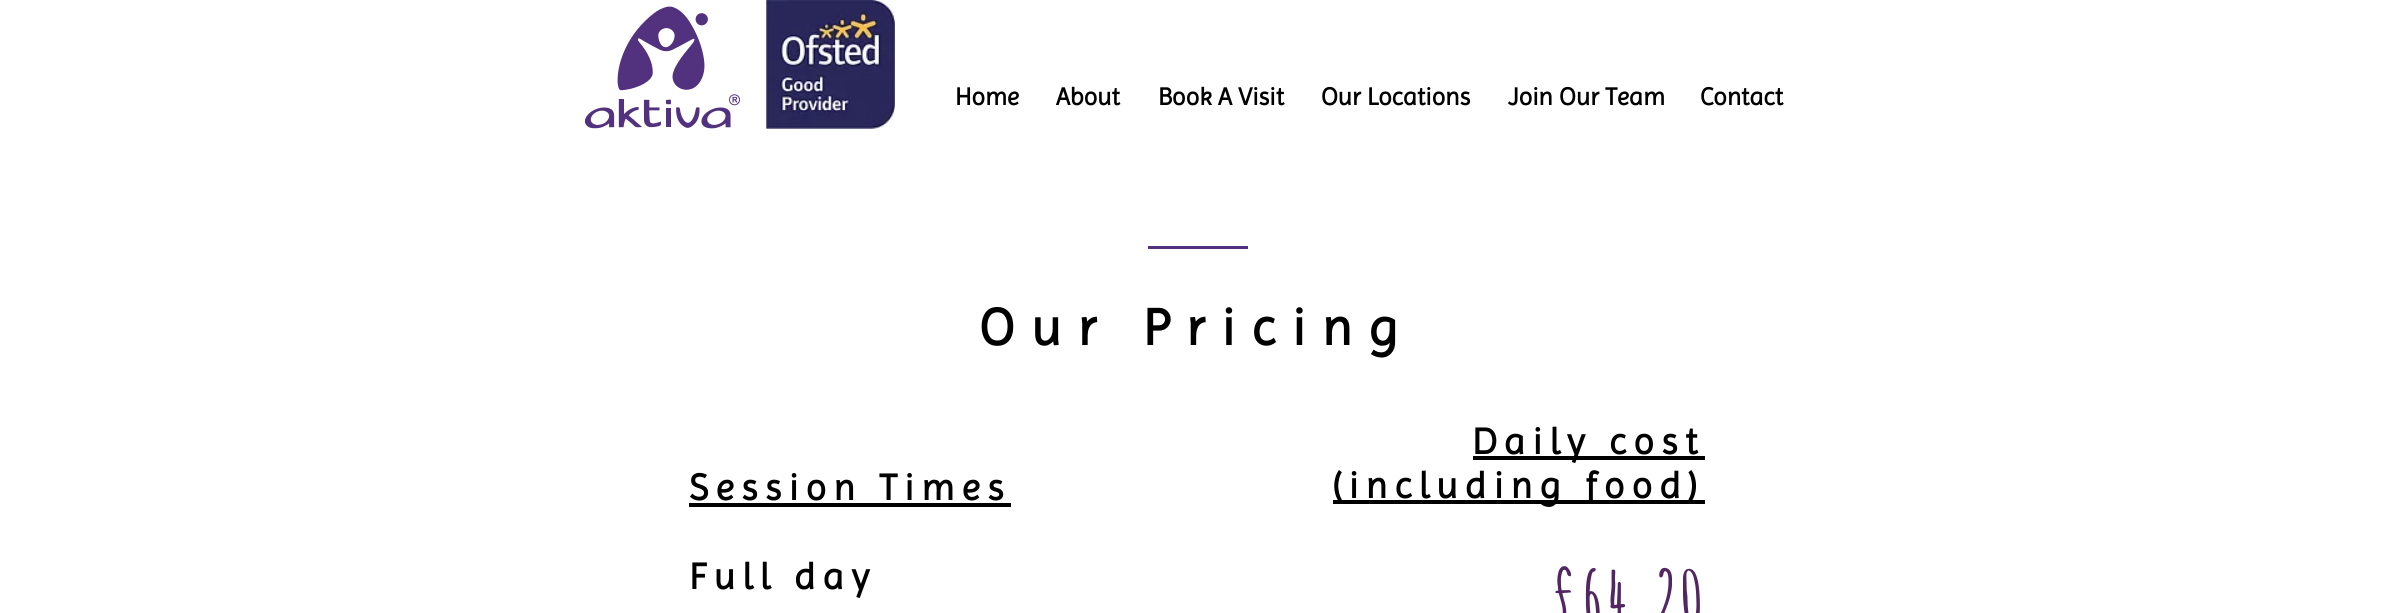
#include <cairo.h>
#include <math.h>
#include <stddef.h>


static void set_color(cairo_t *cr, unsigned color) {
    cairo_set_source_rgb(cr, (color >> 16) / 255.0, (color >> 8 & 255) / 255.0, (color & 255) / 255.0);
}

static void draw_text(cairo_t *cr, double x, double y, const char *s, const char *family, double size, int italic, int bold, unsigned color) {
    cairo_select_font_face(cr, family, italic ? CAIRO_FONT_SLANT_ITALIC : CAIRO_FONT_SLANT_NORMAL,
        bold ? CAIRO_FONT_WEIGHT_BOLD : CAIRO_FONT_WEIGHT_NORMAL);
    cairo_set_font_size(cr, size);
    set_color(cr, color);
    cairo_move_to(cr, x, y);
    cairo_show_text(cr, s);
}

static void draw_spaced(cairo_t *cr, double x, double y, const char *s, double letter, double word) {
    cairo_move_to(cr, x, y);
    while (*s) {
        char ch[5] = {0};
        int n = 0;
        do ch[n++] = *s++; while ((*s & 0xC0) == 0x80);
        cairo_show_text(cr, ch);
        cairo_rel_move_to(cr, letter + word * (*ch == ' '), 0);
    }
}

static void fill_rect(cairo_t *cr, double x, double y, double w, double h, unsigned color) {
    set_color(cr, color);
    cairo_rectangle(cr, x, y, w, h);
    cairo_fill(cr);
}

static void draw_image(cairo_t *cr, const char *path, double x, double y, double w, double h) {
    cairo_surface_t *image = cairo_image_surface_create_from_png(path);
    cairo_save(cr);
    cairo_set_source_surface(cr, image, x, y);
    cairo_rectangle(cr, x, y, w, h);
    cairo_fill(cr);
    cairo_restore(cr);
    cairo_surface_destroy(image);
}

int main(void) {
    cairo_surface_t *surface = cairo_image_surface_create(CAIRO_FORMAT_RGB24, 2395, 613);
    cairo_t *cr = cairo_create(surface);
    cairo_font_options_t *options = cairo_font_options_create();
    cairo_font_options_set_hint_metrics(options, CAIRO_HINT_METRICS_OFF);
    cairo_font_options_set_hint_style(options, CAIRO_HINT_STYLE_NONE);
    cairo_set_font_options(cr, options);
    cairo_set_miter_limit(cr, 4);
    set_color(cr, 0xFFFFFF);
    cairo_paint(cr);
    draw_image(cr, "assets/img1.png", 585, 6, 155, 123);
    draw_image(cr, "assets/img2.png", 766, 0, 129, 129);
    draw_text(cr, 955, 105, "Home", "Imprima", 25, 0, 1, 0x000000);
    draw_text(cr, 1056, 105, "About", "Imprima", 25, 0, 1, 0x000000);
    draw_text(cr, 1158, 105, "Book A Visit", "Imprima", 25, 0, 1, 0x000000);
    draw_text(cr, 1321, 105, "Our Locations", "Imprima", 25, 0, 1, 0x000000);
    draw_text(cr, 1508, 105, "Join Our Team", "Imprima", 25, 0, 1, 0x000000);
    draw_text(cr, 1700, 105, "Contact", "Imprima", 25, 0, 1, 0x000000);
    fill_rect(cr, 1148, 246, 100, 3, 0x52317F);
    cairo_set_font_size(cr, 52.5);
    set_color(cr, 0x000000);
    draw_spaced(cr, 979, 345, "Our Pricing", 16.75, 0);
    cairo_set_font_size(cr, 37.5);
    draw_spaced(cr, 689, 500, "Session Times", 7.5, 0);
    fill_rect(cr, 689, 503, 322, 4, 0x000000);
    fill_rect(cr, 1473, 456, 232, 4, 0x000000);
    draw_spaced(cr, 1472, 454, "Daily cost", 7.5, 0);
    fill_rect(cr, 1333, 500, 372, 4, 0x000000);
    draw_spaced(cr, 1332, 498, "(including food)", 7.5, 0);
    draw_spaced(cr, 689, 589, "Full day", 7.5, 0);
    cairo_select_font_face(cr, "Amatic SC", CAIRO_FONT_SLANT_NORMAL, CAIRO_FONT_WEIGHT_BOLD);
    cairo_set_font_size(cr, 75);
    set_color(cr, 0x522662);
    draw_spaced(cr, 1551, 626, "£64.20", 1.5, 0);
    cairo_surface_write_to_png(surface, "output.png");
    cairo_font_options_destroy(options);
    cairo_destroy(cr);
    cairo_surface_destroy(surface);
    return 0;
}
